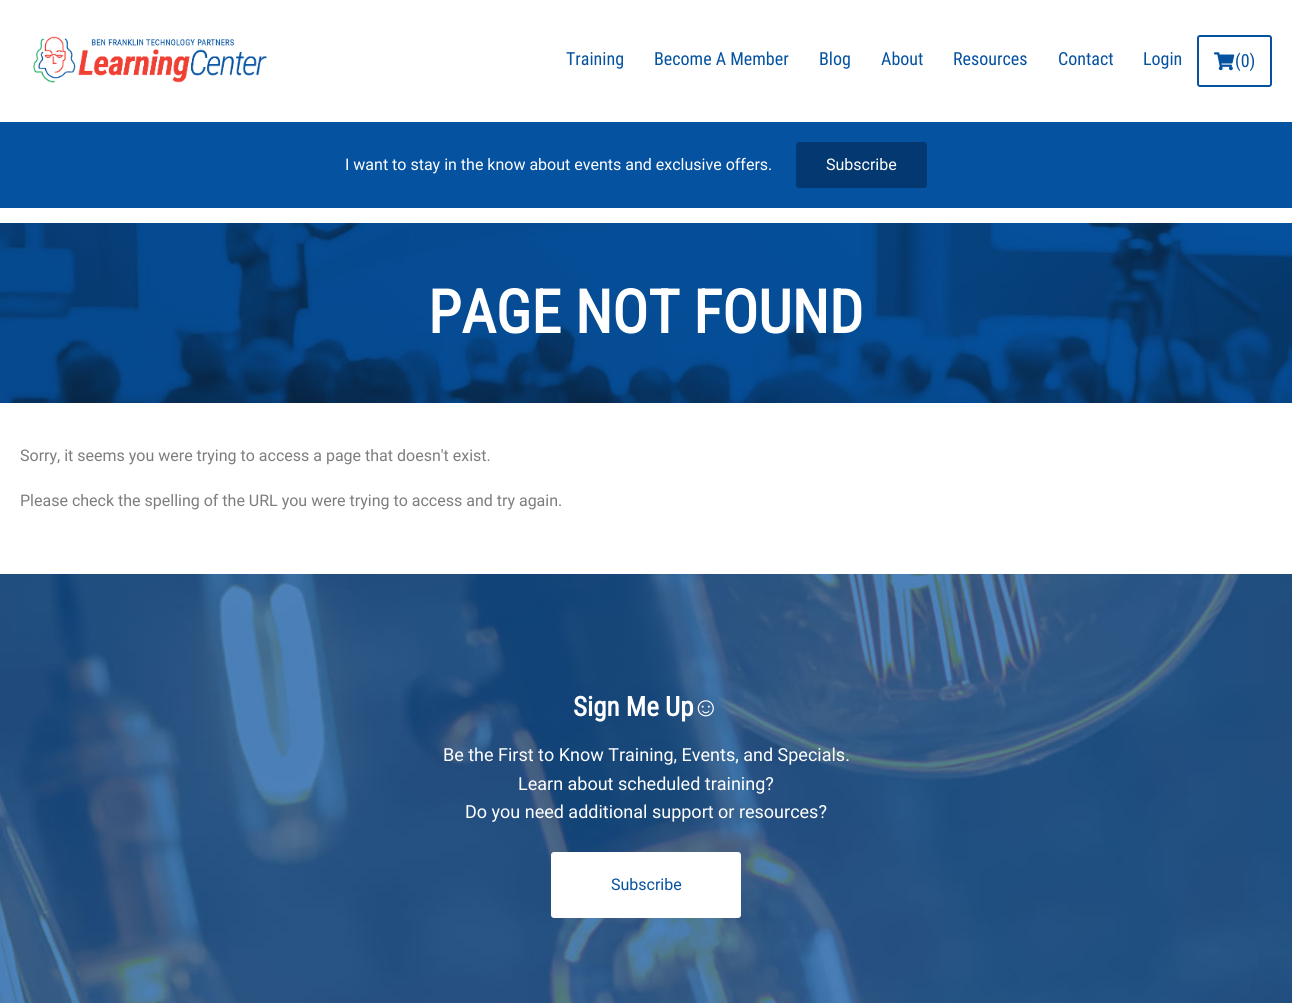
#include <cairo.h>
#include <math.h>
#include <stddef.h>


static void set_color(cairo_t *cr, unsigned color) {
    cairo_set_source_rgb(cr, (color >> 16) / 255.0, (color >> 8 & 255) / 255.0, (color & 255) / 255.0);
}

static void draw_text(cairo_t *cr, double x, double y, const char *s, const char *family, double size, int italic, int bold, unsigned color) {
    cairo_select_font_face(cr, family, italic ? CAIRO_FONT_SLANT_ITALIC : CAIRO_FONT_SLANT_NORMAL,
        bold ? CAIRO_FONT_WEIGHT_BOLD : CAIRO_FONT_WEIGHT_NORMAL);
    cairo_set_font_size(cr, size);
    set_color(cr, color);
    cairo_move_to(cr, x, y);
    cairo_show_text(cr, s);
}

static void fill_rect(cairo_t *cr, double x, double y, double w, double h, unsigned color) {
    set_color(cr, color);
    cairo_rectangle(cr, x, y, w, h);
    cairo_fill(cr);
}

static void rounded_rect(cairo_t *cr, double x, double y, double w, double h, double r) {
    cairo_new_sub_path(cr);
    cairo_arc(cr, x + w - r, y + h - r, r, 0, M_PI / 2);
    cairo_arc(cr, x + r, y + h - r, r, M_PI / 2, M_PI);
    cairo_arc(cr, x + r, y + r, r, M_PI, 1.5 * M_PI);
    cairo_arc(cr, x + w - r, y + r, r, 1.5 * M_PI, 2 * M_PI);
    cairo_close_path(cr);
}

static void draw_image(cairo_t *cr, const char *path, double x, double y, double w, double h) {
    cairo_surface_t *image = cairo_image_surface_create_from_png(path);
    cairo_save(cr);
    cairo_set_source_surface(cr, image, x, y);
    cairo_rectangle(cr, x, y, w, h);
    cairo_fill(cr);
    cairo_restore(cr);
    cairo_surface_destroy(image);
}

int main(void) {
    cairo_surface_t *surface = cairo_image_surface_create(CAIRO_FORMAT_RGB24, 1292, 1003);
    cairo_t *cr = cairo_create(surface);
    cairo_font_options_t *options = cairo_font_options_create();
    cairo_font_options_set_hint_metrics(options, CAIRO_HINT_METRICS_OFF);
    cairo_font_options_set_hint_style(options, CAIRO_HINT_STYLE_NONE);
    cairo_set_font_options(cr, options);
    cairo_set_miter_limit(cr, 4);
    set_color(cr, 0xFFFFFF);
    cairo_paint(cr);
    draw_image(cr, "assets/img1.png", 33, 36, 234, 47);
    draw_text(cr, 566, 65, "Training", "Roboto Condensed", 18, 0, 0, 0x0552A1);
    draw_text(cr, 654, 65, "Become A Member", "Roboto Condensed", 18, 0, 0, 0x0552A1);
    draw_text(cr, 819, 65, "Blog", "Roboto Condensed", 18, 0, 0, 0x0552A1);
    draw_text(cr, 881, 65, "About", "Roboto Condensed", 18, 0, 0, 0x0552A1);
    draw_text(cr, 953, 65, "Resources", "Roboto Condensed", 18, 0, 0, 0x0552A1);
    draw_text(cr, 1058, 65, "Contact", "Roboto Condensed", 18, 0, 0, 0x0552A1);
    draw_text(cr, 1143, 65, "Login", "Roboto Condensed", 18, 0, 0, 0x0552A1);
    rounded_rect(cr, 1198, 36, 73, 50, 2);
    cairo_stroke(cr);
    draw_image(cr, "assets/img2.png", 1214, 52, 21, 19);
    draw_text(cr, 1235, 67, "(0)", "Roboto Condensed", 18, 0, 0, 0x0552A1);
    fill_rect(cr, 0, 122, 1292, 86, 0x0552A1);
    draw_text(cr, 345, 170, "I want to stay in the know about events and exclusive offers.", "Roboto", 16, 0, 0, 0xFFFFFF);
    set_color(cr, 0x033970);
    rounded_rect(cr, 796, 142, 131, 46, 3);
    cairo_fill(cr);
    draw_text(cr, 826, 170, "Subscribe", "Roboto", 16, 0, 0, 0xFFFFFF);
    draw_image(cr, "assets/img3.png", 0, 223, 1292, 180);
    draw_text(cr, 428, 333, "PAGE NOT FOUND", "Roboto Condensed", 60, 0, 1, 0xFFFFFF);
    draw_text(cr, 20, 461, "Sorry, it seems you were trying to access a page that doesn't exist.", "Roboto", 16, 0, 0, 0x7D7D7D);
    draw_text(cr, 20, 506, "Please check the spelling of the URL you were trying to access and try again.", "Roboto", 16, 0, 0, 0x7D7D7D);
    draw_image(cr, "assets/img4.png", 0, 574, 1292, 429);
    draw_text(cr, 573, 716, "Sign Me Up", "Roboto Condensed", 27, 0, 1, 0xFFFFFF);
    draw_text(cr, 692, 716, "☺", "Liberation Sans", 27, 0, 1, 0xFFFFFF);
    draw_text(cr, 443, 761, "Be the First to Know Training, Events, and Specials.", "Roboto", 18, 0, 0, 0xFFFFFF);
    draw_text(cr, 518, 790, "Learn about scheduled training?", "Roboto", 18, 0, 0, 0xFFFFFF);
    draw_text(cr, 465, 818, "Do you need additional support or resources?", "Roboto", 18, 0, 0, 0xFFFFFF);
    rounded_rect(cr, 551, 852, 190, 66, 3);
    cairo_fill(cr);
    draw_text(cr, 611, 890, "Subscribe", "Roboto", 16, 0, 0, 0x0552A1);
    cairo_surface_write_to_png(surface, "output.png");
    cairo_font_options_destroy(options);
    cairo_destroy(cr);
    cairo_surface_destroy(surface);
    return 0;
}
